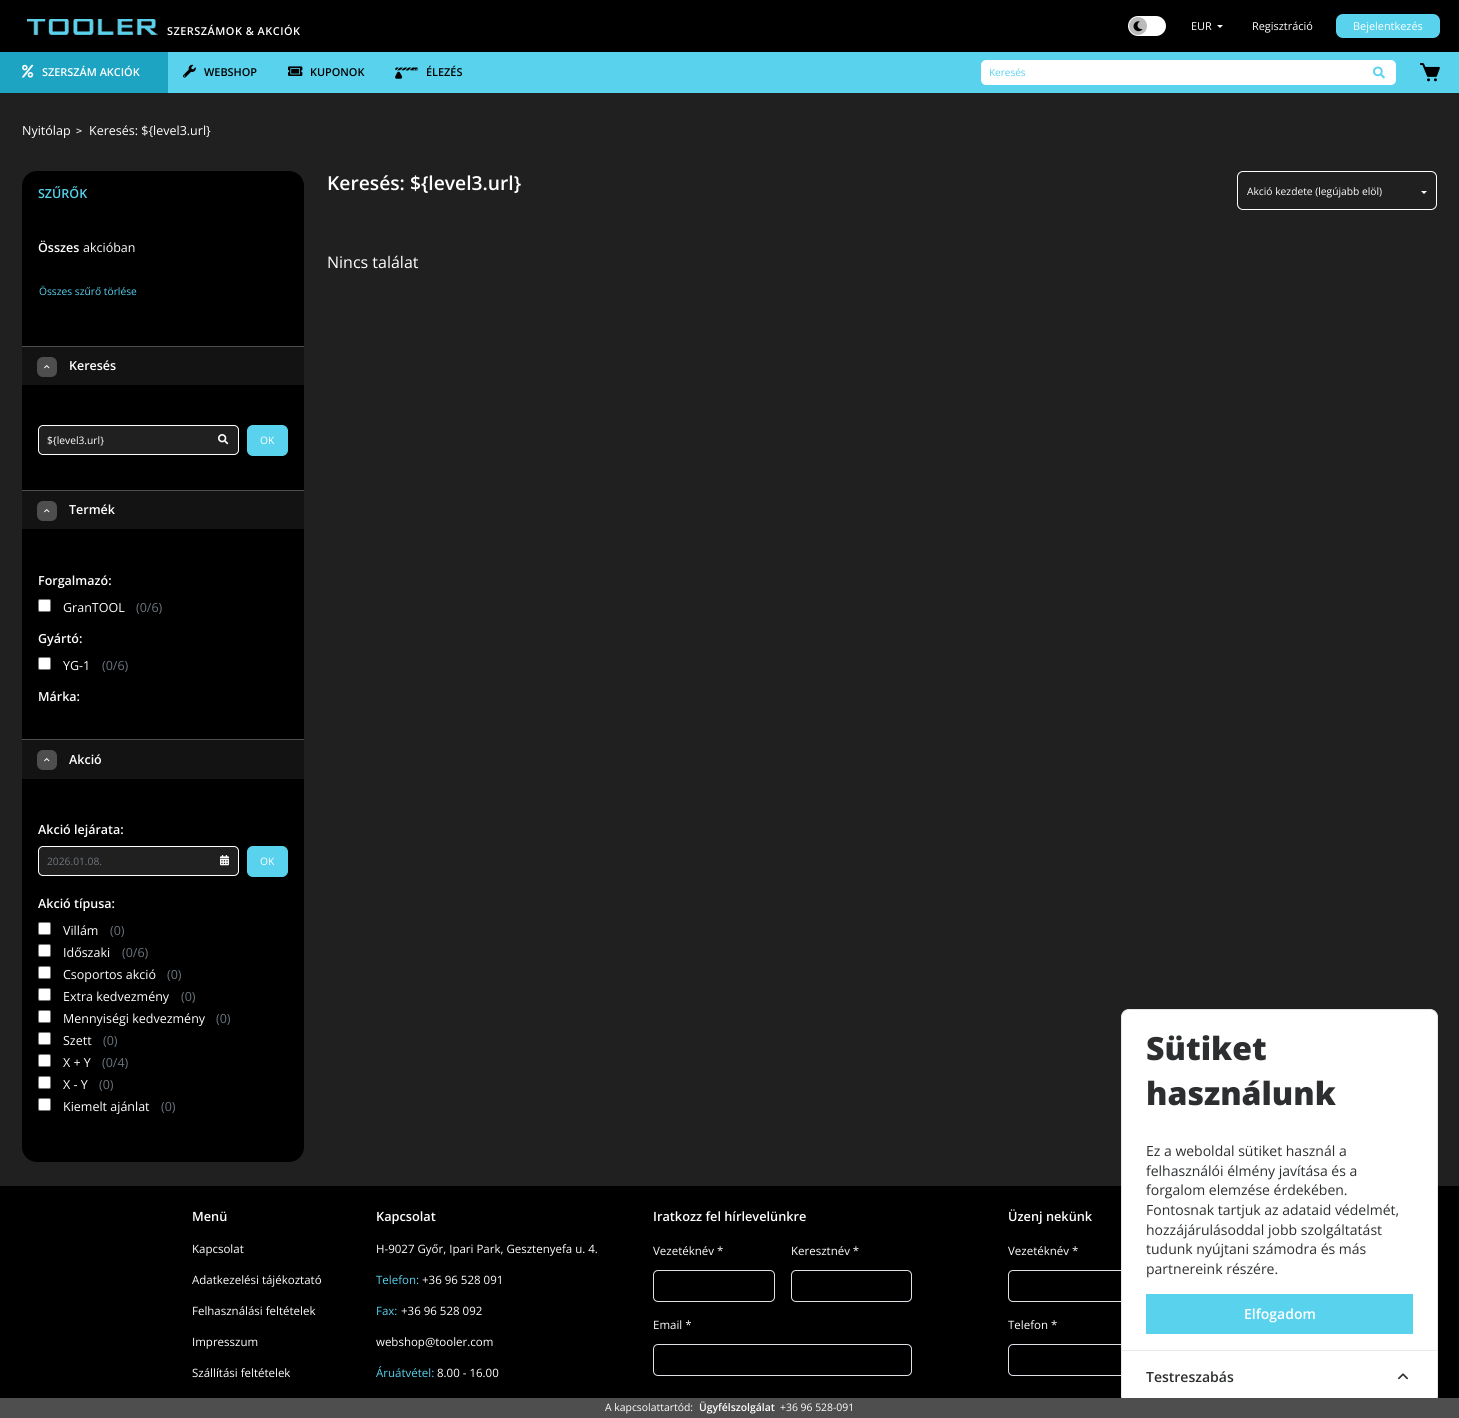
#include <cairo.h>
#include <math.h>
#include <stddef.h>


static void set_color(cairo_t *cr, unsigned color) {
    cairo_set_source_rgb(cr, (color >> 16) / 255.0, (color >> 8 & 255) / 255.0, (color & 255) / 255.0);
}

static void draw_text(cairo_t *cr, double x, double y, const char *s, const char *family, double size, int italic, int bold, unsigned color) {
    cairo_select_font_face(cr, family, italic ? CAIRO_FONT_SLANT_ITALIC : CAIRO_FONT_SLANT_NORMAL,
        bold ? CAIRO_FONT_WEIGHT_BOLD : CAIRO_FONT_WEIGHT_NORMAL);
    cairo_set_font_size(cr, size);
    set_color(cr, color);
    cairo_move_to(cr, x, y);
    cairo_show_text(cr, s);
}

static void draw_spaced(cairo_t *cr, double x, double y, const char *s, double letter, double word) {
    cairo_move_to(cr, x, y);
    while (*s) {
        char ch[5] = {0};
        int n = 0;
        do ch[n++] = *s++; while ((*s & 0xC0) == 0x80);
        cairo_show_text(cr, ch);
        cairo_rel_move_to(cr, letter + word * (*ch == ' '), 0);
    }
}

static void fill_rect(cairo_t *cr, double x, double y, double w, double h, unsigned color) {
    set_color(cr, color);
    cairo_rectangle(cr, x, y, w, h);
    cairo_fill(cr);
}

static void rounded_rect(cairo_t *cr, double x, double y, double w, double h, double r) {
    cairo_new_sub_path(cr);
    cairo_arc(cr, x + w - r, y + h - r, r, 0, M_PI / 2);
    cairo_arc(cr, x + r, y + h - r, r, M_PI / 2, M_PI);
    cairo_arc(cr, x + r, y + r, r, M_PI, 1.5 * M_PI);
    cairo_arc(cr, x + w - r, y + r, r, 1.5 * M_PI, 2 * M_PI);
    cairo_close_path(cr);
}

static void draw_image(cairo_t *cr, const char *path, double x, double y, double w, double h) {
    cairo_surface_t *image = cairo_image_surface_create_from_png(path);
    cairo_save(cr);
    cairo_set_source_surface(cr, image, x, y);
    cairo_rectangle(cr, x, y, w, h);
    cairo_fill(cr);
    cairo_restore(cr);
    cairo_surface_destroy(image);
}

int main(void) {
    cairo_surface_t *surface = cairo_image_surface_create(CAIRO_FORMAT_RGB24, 1459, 1418);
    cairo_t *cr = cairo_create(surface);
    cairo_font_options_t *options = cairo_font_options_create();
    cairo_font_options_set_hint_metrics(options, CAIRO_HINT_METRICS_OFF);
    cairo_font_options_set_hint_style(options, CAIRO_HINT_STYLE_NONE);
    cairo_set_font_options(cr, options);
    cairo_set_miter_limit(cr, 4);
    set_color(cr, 0x202020);
    cairo_paint(cr);
    fill_rect(cr, 0, 0, 1459, 52, 0x000000);
    draw_image(cr, "assets/img1.png", 27, 19, 131, 16);
    cairo_select_font_face(cr, "Open Sans SemiBold", CAIRO_FONT_SLANT_NORMAL, CAIRO_FONT_WEIGHT_NORMAL);
    cairo_set_font_size(cr, 10.9);
    set_color(cr, 0xFFFFFF);
    draw_spaced(cr, 167, 35, "SZERSZÁMOK & AKCIÓK", 0.5, 0);
    rounded_rect(cr, 1128, 16, 38, 20, 10);
    cairo_fill(cr);
    set_color(cr, 0xBBBBBB);
    cairo_arc(cr, 1138, 26, 9, 0, 2 * M_PI);
    cairo_fill(cr);
    draw_image(cr, "assets/img2.png", 1133, 21, 10, 11);
    draw_text(cr, 1191, 30, "EUR", "Open Sans", 10.9, 0, 0, 0xFFFFFF);
    cairo_new_path(cr);
    cairo_move_to(cr, 1217, 25);
    cairo_line_to(cr, 1223, 25);
    cairo_line_to(cr, 1220, 28);
    cairo_close_path(cr);
    cairo_fill(cr);
    draw_text(cr, 1252, 30, "Regisztráció", "Open Sans", 10.9, 0, 0, 0xFFFFFF);
    set_color(cr, 0x58D2ED);
    rounded_rect(cr, 1336, 14, 104, 24, 7);
    cairo_fill(cr);
    draw_text(cr, 1353, 30, "Bejelentkezés", "Open Sans", 10.9, 0, 0, 0xFFFFFF);
    fill_rect(cr, 168, 52, 1291, 41, 0x58D2ED);
    fill_rect(cr, 0, 52, 168, 41, 0x1DA4C2);
    draw_image(cr, "assets/img3.png", 22, 64, 12, 14);
    draw_text(cr, 42, 76, "SZERSZÁM AKCIÓK", "Open Sans SemiBold", 10.9, 0, 0, 0xFFFFFF);
    draw_image(cr, "assets/img4.png", 183, 64, 13, 14);
    draw_text(cr, 204, 76, "WEBSHOP", "Open Sans SemiBold", 10.9, 0, 0, 0x000000);
    draw_image(cr, "assets/img5.png", 288, 66, 15, 10);
    draw_text(cr, 310, 76, "KUPONOK", "Open Sans SemiBold", 10.9, 0, 0, 0x000000);
    draw_image(cr, "assets/img6.png", 395, 67, 23, 12);
    draw_text(cr, 426, 76, "ÉLEZÉS", "Open Sans SemiBold", 10.9, 0, 0, 0x000000);
    set_color(cr, 0xFFFFFF);
    rounded_rect(cr, 981, 60, 415, 25, 5);
    cairo_fill(cr);
    draw_text(cr, 989, 76, "Keresés", "Open Sans", 10, 0, 0, 0x58D2ED);
    draw_image(cr, "assets/img7.png", 1373, 66, 12, 13);
    draw_image(cr, "assets/img8.png", 1420, 63, 20, 19);
    draw_text(cr, 22, 135, "Nyitólap", "Open Sans", 12.5, 0, 0, 0xFFFFFF);
    draw_text(cr, 76, 134, ">", "DejaVu Sans Mono", 10, 0, 0, 0xFFFFFF);
    draw_text(cr, 89, 135, "Keresés: ${level3.url}", "Open Sans", 12.5, 0, 0, 0xFFFFFF);
    set_color(cr, 0x000000);
    rounded_rect(cr, 22, 171, 282, 991, 15);
    cairo_fill(cr);
    draw_text(cr, 38, 198, "SZŰRŐK", "Open Sans SemiBold", 12.5, 0, 0, 0x58D2ED);
    draw_text(cr, 38, 252, "Összes", "Open Sans SemiBold", 12.5, 0, 0, 0xFFFFFF);
    draw_text(cr, 83, 252, "akcióban", "Open Sans", 12.5, 0, 0, 0xFFFFFF);
    draw_text(cr, 39, 295, "Összes szűrő törlése", "Open Sans", 10.25, 0, 0, 0x58D2ED);
    fill_rect(cr, 22, 347, 282, 38, 0x131313);
    fill_rect(cr, 22, 346, 282, 1, 0x4E4E4E);
    rounded_rect(cr, 37, 357, 20, 20, 6);
    cairo_fill(cr);
    draw_image(cr, "assets/img9.png", 44, 365, 6, 4);
    draw_text(cr, 69, 370, "Keresés", "Open Sans SemiBold", 12.5, 0, 0, 0xFFFFFF);
    set_color(cr, 0x202020);
    rounded_rect(cr, 38.5, 425.5, 200, 29, 4.5);
    cairo_fill_preserve(cr);
    set_color(cr, 0xFFFFFF);
    cairo_set_line_width(cr, 1);
    cairo_stroke(cr);
    draw_text(cr, 47, 444, "${level3.url}", "Open Sans", 10.25, 0, 0, 0xFFFFFF);
    draw_image(cr, "assets/img10.png", 218, 434, 11, 11);
    set_color(cr, 0x58D2ED);
    rounded_rect(cr, 247.5, 425.5, 40, 30, 5.5);
    cairo_fill_preserve(cr);
    cairo_stroke(cr);
    draw_text(cr, 260, 444, "OK", "Open Sans", 10.25, 0, 0, 0xFFFFFF);
    fill_rect(cr, 22, 491, 282, 38, 0x131313);
    fill_rect(cr, 22, 490, 282, 1, 0x4E4E4E);
    rounded_rect(cr, 37, 501, 20, 20, 6);
    cairo_fill(cr);
    draw_image(cr, "assets/img9.png", 44, 509, 6, 4);
    draw_text(cr, 69, 514, "Termék", "Open Sans SemiBold", 12.5, 0, 0, 0xFFFFFF);
    draw_text(cr, 38, 585, "Forgalmazó:", "Open Sans SemiBold", 12.5, 0, 0, 0xFFFFFF);
    rounded_rect(cr, 38.5, 599.5, 12, 12, 1.5);
    cairo_fill_preserve(cr);
    set_color(cr, 0x767676);
    cairo_stroke(cr);
    draw_text(cr, 63, 612, "GranTOOL", "Open Sans", 12.5, 0, 0, 0xFFFFFF);
    draw_text(cr, 136, 612, "(0/6)", "Open Sans", 12.5, 0, 0, 0x6C757D);
    draw_text(cr, 38, 643, "Gyártó:", "Open Sans SemiBold", 12.5, 0, 0, 0xFFFFFF);
    rounded_rect(cr, 38.5, 657.5, 12, 12, 1.5);
    cairo_fill_preserve(cr);
    set_color(cr, 0x767676);
    cairo_stroke(cr);
    draw_text(cr, 63, 670, "YG-1", "Open Sans", 12.5, 0, 0, 0xFFFFFF);
    draw_text(cr, 102, 670, "(0/6)", "Open Sans", 12.5, 0, 0, 0x6C757D);
    draw_text(cr, 38, 701, "Márka:", "Open Sans SemiBold", 12.5, 0, 0, 0xFFFFFF);
    fill_rect(cr, 22, 740, 282, 39, 0x131313);
    fill_rect(cr, 22, 739, 282, 1, 0x4E4E4E);
    rounded_rect(cr, 37, 750, 20, 20, 6);
    cairo_fill(cr);
    draw_image(cr, "assets/img9.png", 44, 758, 6, 4);
    draw_text(cr, 69, 764, "Akció", "Open Sans SemiBold", 12.5, 0, 0, 0xFFFFFF);
    draw_text(cr, 38, 834, "Akció lejárata:", "Open Sans SemiBold", 12.5, 0, 0, 0xFFFFFF);
    set_color(cr, 0x202020);
    rounded_rect(cr, 38.5, 846.5, 200, 29, 4.5);
    cairo_fill_preserve(cr);
    set_color(cr, 0xFFFFFF);
    cairo_stroke(cr);
    draw_text(cr, 47, 865, "2026.01.08.", "Open Sans", 10.25, 0, 0, 0x6C757D);
    draw_image(cr, "assets/img11.png", 220, 855, 9, 11);
    set_color(cr, 0x58D2ED);
    rounded_rect(cr, 247.5, 846.5, 40, 30, 5.5);
    cairo_fill_preserve(cr);
    cairo_stroke(cr);
    draw_text(cr, 260, 865, "OK", "Open Sans", 10.25, 0, 0, 0xFFFFFF);
    draw_text(cr, 38, 908, "Akció típusa:", "Open Sans SemiBold", 12.5, 0, 0, 0xFFFFFF);
    rounded_rect(cr, 38.5, 922.5, 12, 12, 1.5);
    cairo_fill_preserve(cr);
    set_color(cr, 0x767676);
    cairo_stroke(cr);
    draw_text(cr, 63, 935, "Villám", "Open Sans", 12.5, 0, 0, 0xFFFFFF);
    draw_text(cr, 110, 935, "(0)", "Open Sans", 12.5, 0, 0, 0x6C757D);
    set_color(cr, 0xFFFFFF);
    rounded_rect(cr, 38.5, 944.5, 12, 12, 1.5);
    cairo_fill_preserve(cr);
    set_color(cr, 0x767676);
    cairo_stroke(cr);
    draw_text(cr, 63, 957, "Időszaki", "Open Sans", 12.5, 0, 0, 0xFFFFFF);
    draw_text(cr, 122, 957, "(0/6)", "Open Sans", 12.5, 0, 0, 0x6C757D);
    set_color(cr, 0xFFFFFF);
    rounded_rect(cr, 38.5, 966.5, 12, 12, 1.5);
    cairo_fill_preserve(cr);
    set_color(cr, 0x767676);
    cairo_stroke(cr);
    draw_text(cr, 63, 979, "Csoportos akció", "Open Sans", 12.5, 0, 0, 0xFFFFFF);
    draw_text(cr, 167, 979, "(0)", "Open Sans", 12.5, 0, 0, 0x6C757D);
    set_color(cr, 0xFFFFFF);
    rounded_rect(cr, 38.5, 988.5, 12, 12, 1.5);
    cairo_fill_preserve(cr);
    set_color(cr, 0x767676);
    cairo_stroke(cr);
    draw_text(cr, 63, 1001, "Extra kedvezmény", "Open Sans", 12.5, 0, 0, 0xFFFFFF);
    draw_text(cr, 181, 1001, "(0)", "Open Sans", 12.5, 0, 0, 0x6C757D);
    set_color(cr, 0xFFFFFF);
    rounded_rect(cr, 38.5, 1010.5, 12, 12, 1.5);
    cairo_fill_preserve(cr);
    set_color(cr, 0x767676);
    cairo_stroke(cr);
    draw_text(cr, 63, 1023, "Mennyiségi kedvezmény", "Open Sans", 12.5, 0, 0, 0xFFFFFF);
    draw_text(cr, 216, 1023, "(0)", "Open Sans", 12.5, 0, 0, 0x6C757D);
    set_color(cr, 0xFFFFFF);
    rounded_rect(cr, 38.5, 1032.5, 12, 12, 1.5);
    cairo_fill_preserve(cr);
    set_color(cr, 0x767676);
    cairo_stroke(cr);
    draw_text(cr, 63, 1045, "Szett", "Open Sans", 12.5, 0, 0, 0xFFFFFF);
    draw_text(cr, 103, 1045, "(0)", "Open Sans", 12.5, 0, 0, 0x6C757D);
    set_color(cr, 0xFFFFFF);
    rounded_rect(cr, 38.5, 1054.5, 12, 12, 1.5);
    cairo_fill_preserve(cr);
    set_color(cr, 0x767676);
    cairo_stroke(cr);
    draw_text(cr, 63, 1067, "X + Y", "Open Sans", 12.5, 0, 0, 0xFFFFFF);
    draw_text(cr, 102, 1067, "(0/4)", "Open Sans", 12.5, 0, 0, 0x6C757D);
    set_color(cr, 0xFFFFFF);
    rounded_rect(cr, 38.5, 1076.5, 12, 12, 1.5);
    cairo_fill_preserve(cr);
    set_color(cr, 0x767676);
    cairo_stroke(cr);
    draw_text(cr, 63, 1089, "X - Y", "Open Sans", 12.5, 0, 0, 0xFFFFFF);
    draw_text(cr, 99, 1089, "(0)", "Open Sans", 12.5, 0, 0, 0x6C757D);
    set_color(cr, 0xFFFFFF);
    rounded_rect(cr, 38.5, 1098.5, 12, 12, 1.5);
    cairo_fill_preserve(cr);
    set_color(cr, 0x767676);
    cairo_stroke(cr);
    draw_text(cr, 63, 1111, "Kiemelt ajánlat", "Open Sans", 12.5, 0, 0, 0xFFFFFF);
    draw_text(cr, 161, 1111, "(0)", "Open Sans", 12.5, 0, 0, 0x6C757D);
    draw_text(cr, 327, 190, "Keresés: ${level3.url}", "Open Sans SemiBold", 19.25, 0, 0, 0xFFFFFF);
    rounded_rect(cr, 1237.5, 171.5, 199, 38, 5.5);
    cairo_stroke(cr);
    draw_text(cr, 1247, 195, "Akció kezdete (legújabb elöl)", "Open Sans", 10.25, 0, 0, 0xFFFFFF);
    cairo_new_path(cr);
    cairo_move_to(cr, 1421, 191);
    cairo_line_to(cr, 1427, 191);
    cairo_line_to(cr, 1424, 194);
    cairo_close_path(cr);
    cairo_fill(cr);
    draw_text(cr, 327, 268, "Nincs találat", "Open Sans", 16, 0, 0, 0xFFFFFF);
    fill_rect(cr, 0, 1186, 1459, 212, 0x000000);
    draw_text(cr, 192, 1221, "Menü", "Open Sans SemiBold", 12.75, 0, 0, 0xFFFFFF);
    draw_text(cr, 192, 1253, "Kapcsolat", "Open Sans", 11.5, 0, 0, 0xFFFFFF);
    draw_text(cr, 192, 1284, "Adatkezelési tájékoztató", "Open Sans", 11.5, 0, 0, 0xFFFFFF);
    draw_text(cr, 192, 1315, "Felhasználási feltételek", "Open Sans", 11.5, 0, 0, 0xFFFFFF);
    draw_text(cr, 192, 1346, "Impresszum", "Open Sans", 11.5, 0, 0, 0xFFFFFF);
    draw_text(cr, 192, 1377, "Szállítási feltételek", "Open Sans", 11.5, 0, 0, 0xFFFFFF);
    draw_text(cr, 376, 1221, "Kapcsolat", "Open Sans SemiBold", 12.75, 0, 0, 0xFFFFFF);
    draw_text(cr, 376, 1253, "H-9027 Győr, Ipari Park, Gesztenyefa u. 4.", "Open Sans", 11.5, 0, 0, 0xFFFFFF);
    draw_text(cr, 376, 1284, "Telefon:", "Open Sans", 11.5, 0, 0, 0x58D2ED);
    draw_text(cr, 422, 1284, "+36 96 528 091", "Open Sans", 11.5, 0, 0, 0xFFFFFF);
    draw_text(cr, 376, 1315, "Fax:", "Open Sans", 11.5, 0, 0, 0x58D2ED);
    draw_text(cr, 401, 1315, "+36 96 528 092", "Open Sans", 11.5, 0, 0, 0xFFFFFF);
    draw_text(cr, 376, 1346, "webshop@tooler.com", "Open Sans", 11.5, 0, 0, 0xFFFFFF);
    draw_text(cr, 376, 1377, "Áruátvétel:", "Open Sans", 11.5, 0, 0, 0x58D2ED);
    draw_text(cr, 437, 1377, "8.00 - 16.00", "Open Sans", 11.5, 0, 0, 0xFFFFFF);
    draw_text(cr, 653, 1221, "Iratkozz fel hírlevelünkre", "Open Sans SemiBold", 12.75, 0, 0, 0xFFFFFF);
    draw_text(cr, 653, 1255, "Vezetéknév *", "Open Sans", 11.5, 0, 0, 0xFFFFFF);
    rounded_rect(cr, 653.5, 1270.5, 121, 31, 4.5);
    set_color(cr, 0xDEE2E6);
    cairo_stroke(cr);
    draw_text(cr, 791, 1255, "Keresztnév *", "Open Sans", 11.5, 0, 0, 0xFFFFFF);
    rounded_rect(cr, 791.5, 1270.5, 120, 31, 4.5);
    set_color(cr, 0xDEE2E6);
    cairo_stroke(cr);
    draw_text(cr, 653, 1329, "Email *", "Open Sans", 11.5, 0, 0, 0xFFFFFF);
    rounded_rect(cr, 653.5, 1344.5, 258, 31, 4.5);
    set_color(cr, 0xDEE2E6);
    cairo_stroke(cr);
    draw_text(cr, 1008, 1221, "Üzenj nekünk", "Open Sans SemiBold", 12.75, 0, 0, 0xFFFFFF);
    draw_text(cr, 1008, 1255, "Vezetéknév *", "Open Sans", 11.5, 0, 0, 0xFFFFFF);
    rounded_rect(cr, 1008.5, 1270.5, 120, 31, 4.5);
    set_color(cr, 0xDEE2E6);
    cairo_stroke(cr);
    draw_text(cr, 1008, 1329, "Telefon *", "Open Sans", 11.5, 0, 0, 0xFFFFFF);
    rounded_rect(cr, 1008.5, 1344.5, 120, 31, 4.5);
    set_color(cr, 0xDEE2E6);
    cairo_stroke(cr);
    set_color(cr, 0xFFFFFF);
    rounded_rect(cr, 1121.5, 1009.5, 316, 394, 7.5);
    cairo_fill_preserve(cr);
    set_color(cr, 0xE7E8E9);
    cairo_stroke(cr);
    fill_rect(cr, 0, 1398, 1459, 20, 0x4E4E4E);
    draw_text(cr, 605, 1411, "A kapcsolattartód:", "Open Sans", 10.4, 0, 0, 0xFFFFFF);
    draw_text(cr, 699, 1411, "Ügyfélszolgálat", "Open Sans SemiBold", 10.4, 0, 0, 0xFFFFFF);
    draw_text(cr, 780, 1411, "+36 96 528-091", "Open Sans", 10.4, 0, 0, 0xFFFFFF);
    draw_text(cr, 1146, 1060, "Sütiket", "Open Sans ExtraBold", 32, 0, 0, 0x2C2E30);
    draw_text(cr, 1146, 1105, "használunk", "Open Sans ExtraBold", 32, 0, 0, 0x2C2E30);
    draw_text(cr, 1146, 1156, "Ez a weboldal sütiket használ a", "Open Sans", 14, 0, 0, 0x2C2E30);
    draw_text(cr, 1146, 1176, "felhasználói élmény javítása és a", "Open Sans", 14, 0, 0, 0x2C2E30);
    draw_text(cr, 1146, 1195, "forgalom elemzése érdekében.", "Open Sans", 14, 0, 0, 0x2C2E30);
    draw_text(cr, 1146, 1215, "Fontosnak tartjuk az adataid védelmét,", "Open Sans", 14, 0, 0, 0x2C2E30);
    draw_text(cr, 1146, 1235, "hozzájárulásoddal jobb szolgáltatást", "Open Sans", 14, 0, 0, 0x2C2E30);
    draw_text(cr, 1146, 1254, "tudunk nyújtani számodra és más", "Open Sans", 14, 0, 0, 0x2C2E30);
    draw_text(cr, 1146, 1274, "partnereink részére.", "Open Sans", 14, 0, 0, 0x2C2E30);
    fill_rect(cr, 1146, 1294, 267, 40, 0x58D2ED);
    draw_text(cr, 1244, 1319, "Elfogadom", "Open Sans SemiBold", 14, 0, 0, 0xFFFFFF);
    fill_rect(cr, 1122, 1350, 315, 1, 0xE7E8E9);
    draw_text(cr, 1146, 1382, "Testreszabás", "Open Sans SemiBold", 14, 0, 0, 0x2C2E30);
    draw_image(cr, "assets/img12.png", 1398, 1373, 10, 7);
    cairo_surface_write_to_png(surface, "output.png");
    cairo_font_options_destroy(options);
    cairo_destroy(cr);
    cairo_surface_destroy(surface);
    return 0;
}
